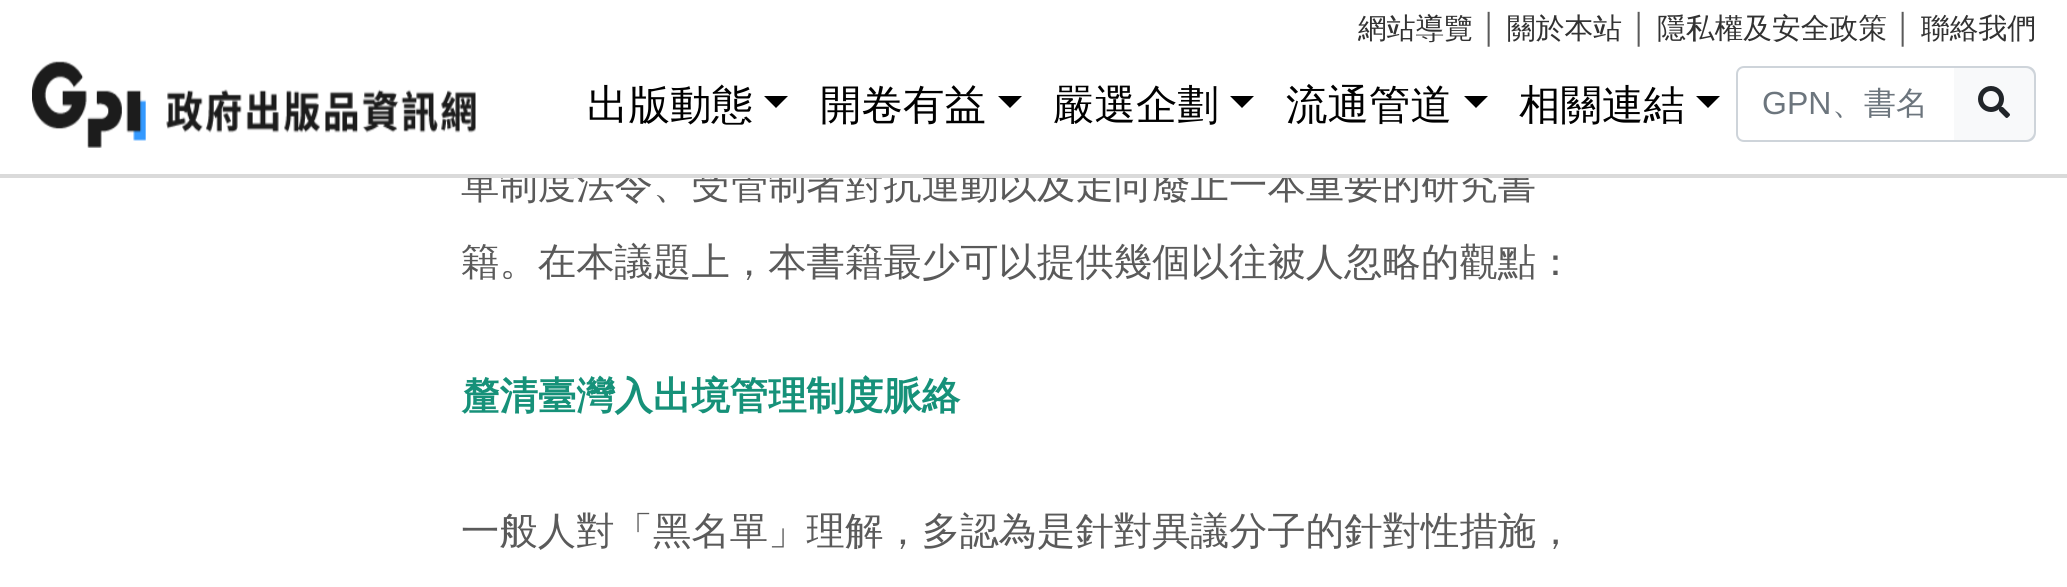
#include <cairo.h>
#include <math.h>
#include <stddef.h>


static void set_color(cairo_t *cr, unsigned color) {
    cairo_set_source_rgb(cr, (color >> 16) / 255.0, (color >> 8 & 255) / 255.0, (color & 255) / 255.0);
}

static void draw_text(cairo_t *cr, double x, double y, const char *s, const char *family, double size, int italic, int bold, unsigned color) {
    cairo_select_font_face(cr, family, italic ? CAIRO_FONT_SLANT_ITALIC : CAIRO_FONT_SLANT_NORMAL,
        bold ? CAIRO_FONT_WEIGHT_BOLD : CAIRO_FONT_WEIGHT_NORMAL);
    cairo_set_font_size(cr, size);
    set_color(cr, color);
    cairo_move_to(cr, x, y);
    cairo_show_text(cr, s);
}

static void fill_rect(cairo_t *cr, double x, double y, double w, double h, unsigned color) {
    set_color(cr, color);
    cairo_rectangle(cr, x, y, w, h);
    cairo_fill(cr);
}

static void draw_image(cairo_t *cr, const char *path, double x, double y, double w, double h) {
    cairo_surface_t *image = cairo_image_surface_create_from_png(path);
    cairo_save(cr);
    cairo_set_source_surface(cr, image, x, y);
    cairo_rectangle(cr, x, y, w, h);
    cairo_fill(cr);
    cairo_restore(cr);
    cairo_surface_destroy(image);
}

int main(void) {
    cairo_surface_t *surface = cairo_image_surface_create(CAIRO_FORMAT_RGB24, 2067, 587);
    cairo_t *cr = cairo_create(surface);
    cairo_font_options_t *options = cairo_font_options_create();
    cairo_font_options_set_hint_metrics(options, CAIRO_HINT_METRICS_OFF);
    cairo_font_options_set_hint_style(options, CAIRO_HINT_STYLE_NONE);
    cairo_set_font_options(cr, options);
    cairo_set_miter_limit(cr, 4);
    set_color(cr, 0xFFFFFF);
    cairo_paint(cr);
    draw_text(cr, 461, 198, "單制度法令、受管制者對抗運動以及走向廢止一本重要的研究書", "WenQuanYi Zen Hei Medium", 38.4, 0, 0, 0x5A5A5A);
    fill_rect(cr, 465, 165, 1070, 9, 0xFFFFFF);
    fill_rect(cr, 0, 174, 2067, 4, 0xDADADA);
    draw_text(cr, 1358, 38, "網站導覽", "WenQuanYi Zen Hei Medium", 28.75, 0, 0, 0x323232);
    draw_text(cr, 1481, 38, "│", "Liberation Sans", 28.75, 0, 0, 0x5A5A5A);
    draw_text(cr, 1507, 38, "關於本站", "WenQuanYi Zen Hei Medium", 28.75, 0, 0, 0x323232);
    draw_text(cr, 1631, 38, "│", "Liberation Sans", 28.75, 0, 0, 0x5A5A5A);
    draw_text(cr, 1657, 38, "隱私權及安全政策", "WenQuanYi Zen Hei Medium", 28.75, 0, 0, 0x323232);
    draw_text(cr, 1895, 38, "│", "Liberation Sans", 28.75, 0, 0, 0x5A5A5A);
    draw_text(cr, 1921, 38, "聯絡我們", "WenQuanYi Zen Hei Medium", 28.75, 0, 0, 0x323232);
    draw_image(cr, "assets/img1.png", 32, 61, 444, 87);
    draw_text(cr, 587, 119, "出版動態", "WenQuanYi Zen Hei Medium", 41.5, 0, 0, 0x000000);
    cairo_new_path(cr);
    cairo_move_to(cr, 764, 96);
    cairo_line_to(cr, 788, 96);
    cairo_line_to(cr, 776, 108);
    cairo_close_path(cr);
    cairo_fill(cr);
    draw_text(cr, 820, 119, "開卷有益", "WenQuanYi Zen Hei Medium", 41.5, 0, 0, 0x000000);
    cairo_new_path(cr);
    cairo_move_to(cr, 998, 96);
    cairo_line_to(cr, 1022, 96);
    cairo_line_to(cr, 1010, 108);
    cairo_close_path(cr);
    cairo_fill(cr);
    draw_text(cr, 1053, 119, "嚴選企劃", "WenQuanYi Zen Hei Medium", 41.5, 0, 0, 0x000000);
    cairo_new_path(cr);
    cairo_move_to(cr, 1230, 96);
    cairo_line_to(cr, 1254, 96);
    cairo_line_to(cr, 1242, 108);
    cairo_close_path(cr);
    cairo_fill(cr);
    draw_text(cr, 1286, 119, "流通管道", "WenQuanYi Zen Hei Medium", 41.5, 0, 0, 0x000000);
    cairo_new_path(cr);
    cairo_move_to(cr, 1464, 96);
    cairo_line_to(cr, 1488, 96);
    cairo_line_to(cr, 1476, 108);
    cairo_close_path(cr);
    cairo_fill(cr);
    draw_text(cr, 1519, 119, "相關連結", "WenQuanYi Zen Hei Medium", 41.5, 0, 0, 0x000000);
    cairo_new_path(cr);
    cairo_move_to(cr, 1696, 96);
    cairo_line_to(cr, 1720, 96);
    cairo_line_to(cr, 1708, 108);
    cairo_close_path(cr);
    cairo_fill(cr);
    cairo_new_path(cr);
    cairo_move_to(cr, 1744, 67);
    cairo_line_to(cr, 1955, 67);
    cairo_line_to(cr, 1955, 141);
    cairo_line_to(cr, 1744, 141);
    cairo_curve_to(cr, 1740, 141, 1737, 138, 1737, 134);
    cairo_line_to(cr, 1737, 74);
    cairo_curve_to(cr, 1737, 70, 1740, 67, 1744, 67);
    cairo_close_path(cr);
    set_color(cr, 0xCED4DA);
    cairo_stroke(cr);
    draw_text(cr, 1762, 114, "GPN", "Liberation Sans", 32, 0, 0, 0x6C757D);
    draw_text(cr, 1832, 114, "、書名", "WenQuanYi Zen Hei Medium", 32, 0, 0, 0x6C757D);
    set_color(cr, 0xF8F9FA);
    cairo_new_path(cr);
    cairo_move_to(cr, 1954, 66);
    cairo_line_to(cr, 2026, 66);
    cairo_curve_to(cr, 2031.5, 66, 2036, 70.5, 2036, 76);
    cairo_line_to(cr, 2036, 132);
    cairo_curve_to(cr, 2036, 137.5, 2031.5, 142, 2026, 142);
    cairo_line_to(cr, 1954, 142);
    cairo_close_path(cr);
    cairo_fill(cr);
    set_color(cr, 0xCED4DA);
    cairo_set_fill_rule(cr, CAIRO_FILL_RULE_EVEN_ODD);
    cairo_new_path(cr);
    cairo_move_to(cr, 1954, 66);
    cairo_line_to(cr, 2026, 66);
    cairo_curve_to(cr, 2032, 66, 2036, 70, 2036, 76);
    cairo_line_to(cr, 2036, 132);
    cairo_curve_to(cr, 2036, 138, 2032, 142, 2026, 142);
    cairo_line_to(cr, 1954, 142);
    cairo_close_path(cr);
    cairo_move_to(cr, 1954, 68);
    cairo_line_to(cr, 2026, 68);
    cairo_curve_to(cr, 2030, 68, 2034, 72, 2034, 76);
    cairo_line_to(cr, 2034, 132);
    cairo_curve_to(cr, 2034, 136, 2030, 140, 2026, 140);
    cairo_line_to(cr, 1954, 140);
    cairo_close_path(cr);
    cairo_fill(cr);
    draw_image(cr, "assets/img2.png", 1978, 86, 32, 32);
    draw_text(cr, 461, 275, "籍。在本議題上，本書籍最少可以提供幾個以往被人忽略的觀點：", "WenQuanYi Zen Hei Medium", 38.4, 0, 0, 0x5A5A5A);
    draw_text(cr, 461, 409, "釐清臺灣入出境管理制度脈絡", "WenQuanYi Zen Hei", 38.4, 0, 1, 0x169179);
    draw_text(cr, 461, 544, "一般人對「黑名單」理解，多認為是針對異議分子的針對性措施，", "WenQuanYi Zen Hei Medium", 38.4, 0, 0, 0x5A5A5A);
    cairo_surface_write_to_png(surface, "output.png");
    cairo_font_options_destroy(options);
    cairo_destroy(cr);
    cairo_surface_destroy(surface);
    return 0;
}
